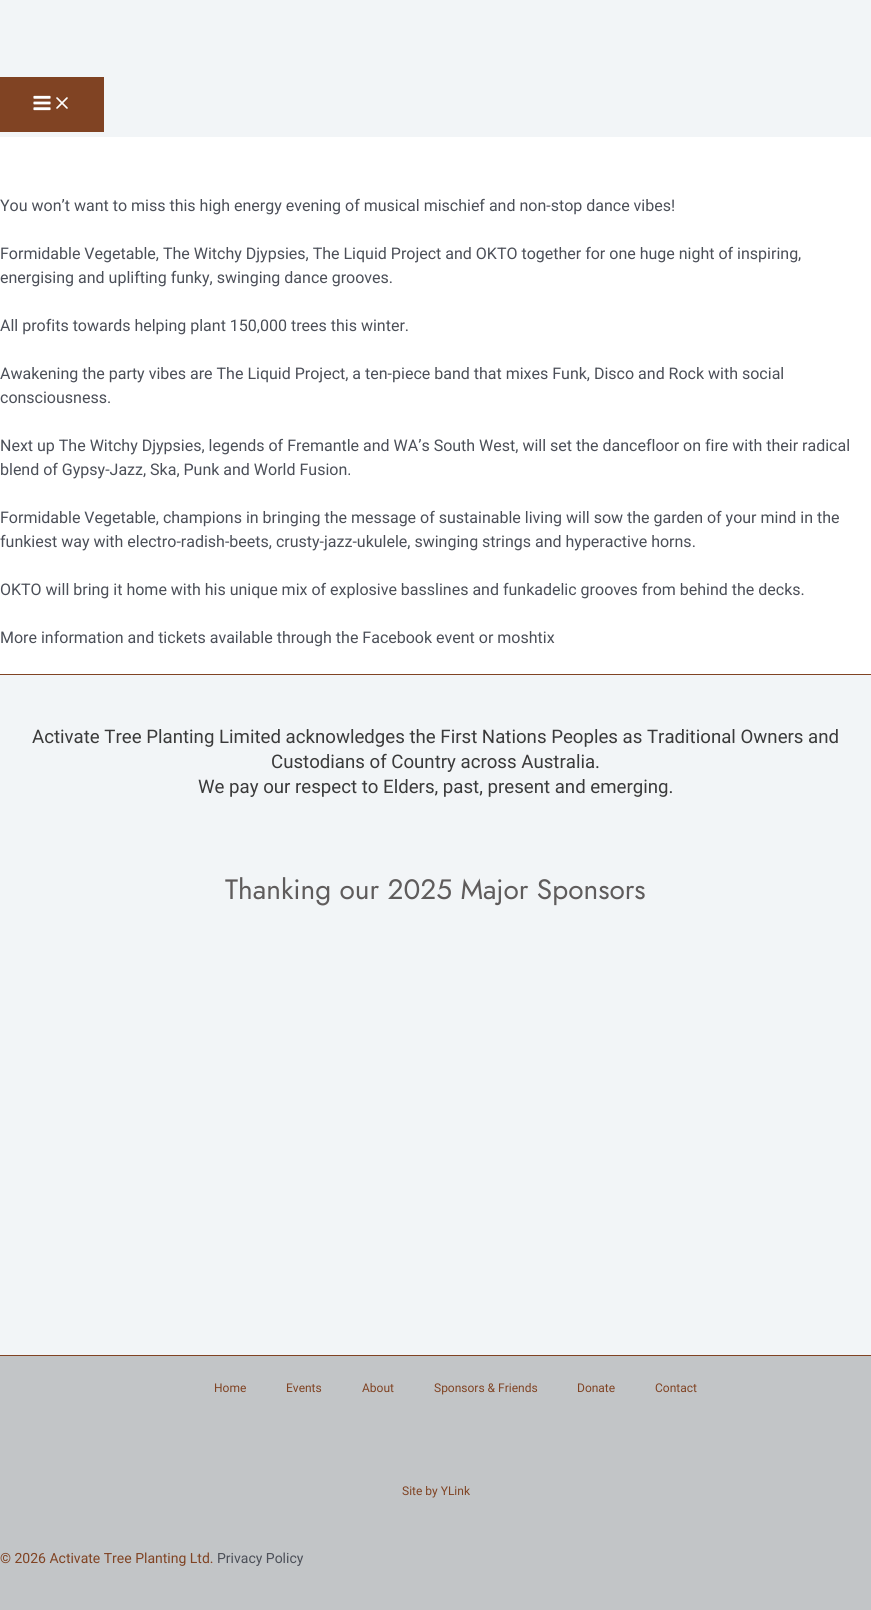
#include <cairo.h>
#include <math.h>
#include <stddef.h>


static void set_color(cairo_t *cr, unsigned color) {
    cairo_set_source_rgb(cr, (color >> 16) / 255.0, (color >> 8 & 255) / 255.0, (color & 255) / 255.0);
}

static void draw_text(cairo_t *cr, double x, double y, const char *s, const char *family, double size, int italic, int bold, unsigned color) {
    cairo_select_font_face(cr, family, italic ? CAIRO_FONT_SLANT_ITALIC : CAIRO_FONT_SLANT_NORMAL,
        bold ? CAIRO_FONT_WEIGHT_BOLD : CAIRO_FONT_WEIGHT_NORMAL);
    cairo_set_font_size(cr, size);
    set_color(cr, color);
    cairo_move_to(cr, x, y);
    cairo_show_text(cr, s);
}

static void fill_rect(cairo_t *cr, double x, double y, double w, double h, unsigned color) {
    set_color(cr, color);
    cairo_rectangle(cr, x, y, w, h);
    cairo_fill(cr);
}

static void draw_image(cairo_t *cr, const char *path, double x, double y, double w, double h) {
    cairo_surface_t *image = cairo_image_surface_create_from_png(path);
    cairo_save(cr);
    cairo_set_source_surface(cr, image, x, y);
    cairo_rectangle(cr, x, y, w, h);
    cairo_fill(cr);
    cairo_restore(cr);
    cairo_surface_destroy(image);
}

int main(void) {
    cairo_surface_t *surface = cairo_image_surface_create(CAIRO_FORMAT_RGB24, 871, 1610);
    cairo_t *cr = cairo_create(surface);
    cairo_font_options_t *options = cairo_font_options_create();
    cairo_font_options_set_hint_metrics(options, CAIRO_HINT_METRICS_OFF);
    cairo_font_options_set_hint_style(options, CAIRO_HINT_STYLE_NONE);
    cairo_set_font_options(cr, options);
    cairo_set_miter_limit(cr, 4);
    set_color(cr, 0xFFFFFF);
    cairo_paint(cr);
    fill_rect(cr, 0, 0, 871, 137, 0xF2F5F7);
    fill_rect(cr, 0, 77, 104, 55, 0x804323);
    draw_image(cr, "assets/img1.png", 33, 95, 18, 16);
    draw_image(cr, "assets/img2.png", 56, 97, 12, 12);
    draw_text(cr, 0, 211, "You won’t want to miss this high energy evening of musical mischief and non-stop dance vibes!", "Roboto", 16, 0, 0, 0x4B4F58);
    draw_text(cr, 0, 259, "Formidable Vegetable, The Witchy Djypsies, The Liquid Project and OKTO together for one huge night of inspiring,", "Roboto", 16, 0, 0, 0x4B4F58);
    draw_text(cr, 0, 283, "energising and uplifting funky, swinging dance grooves.", "Roboto", 16, 0, 0, 0x4B4F58);
    draw_text(cr, 0, 331, "All profits towards helping plant 150,000 trees this winter.", "Roboto", 16, 0, 0, 0x4B4F58);
    draw_text(cr, 0, 379, "Awakening the party vibes are The Liquid Project, a ten-piece band that mixes Funk, Disco and Rock with social", "Roboto", 16, 0, 0, 0x4B4F58);
    draw_text(cr, 0, 403, "consciousness.", "Roboto", 16, 0, 0, 0x4B4F58);
    draw_text(cr, 0, 451, "Next up The Witchy Djypsies, legends of Fremantle and WA’s South West, will set the dancefloor on fire with their radical", "Roboto", 16, 0, 0, 0x4B4F58);
    draw_text(cr, 0, 475, "blend of Gypsy-Jazz, Ska, Punk and World Fusion.", "Roboto", 16, 0, 0, 0x4B4F58);
    draw_text(cr, 0, 523, "Formidable Vegetable, champions in bringing the message of sustainable living will sow the garden of your mind in the", "Roboto", 16, 0, 0, 0x4B4F58);
    draw_text(cr, 0, 547, "funkiest way with electro-radish-beets, crusty-jazz-ukulele, swinging strings and hyperactive horns.", "Roboto", 16, 0, 0, 0x4B4F58);
    draw_text(cr, 0, 595, "OKTO will bring it home with his unique mix of explosive basslines and funkadelic grooves from behind the decks.", "Roboto", 16, 0, 0, 0x4B4F58);
    draw_text(cr, 0, 643, "More information and tickets available through the Facebook event or moshtix", "Roboto", 16, 0, 0, 0x4B4F58);
    fill_rect(cr, 0, 675, 871, 680, 0xF2F5F7);
    fill_rect(cr, 0, 674, 871, 1, 0x804323);
    draw_text(cr, 32, 743, "Activate Tree Planting Limited acknowledges the First Nations Peoples as Traditional Owners and", "Roboto", 18.65, 0, 0, 0x3A3A3A);
    draw_text(cr, 271, 768, "Custodians of Country across Australia.", "Roboto", 18.65, 0, 0, 0x3A3A3A);
    draw_text(cr, 198, 793, "We pay our respect to Elders, past, present and emerging.", "Roboto", 18.65, 0, 0, 0x3A3A3A);
    draw_text(cr, 225, 899, "Thanking our 2025 Major Sponsors", "Jost", 28, 0, 0, 0x5F5C5C);
    fill_rect(cr, 0, 1356, 871, 254, 0xC2C5C7);
    fill_rect(cr, 0, 1355, 871, 1, 0x804323);
    draw_text(cr, 214, 1392, "Home", "Roboto", 12, 0, 0, 0x804323);
    draw_text(cr, 286, 1392, "Events", "Roboto", 12, 0, 0, 0x804323);
    draw_text(cr, 362, 1392, "About", "Roboto", 12, 0, 0, 0x804323);
    draw_text(cr, 434, 1392, "Sponsors & Friends", "Roboto", 12, 0, 0, 0x804323);
    draw_text(cr, 577, 1392, "Donate", "Roboto", 12, 0, 0, 0x804323);
    draw_text(cr, 655, 1392, "Contact", "Roboto", 12, 0, 0, 0x804323);
    draw_text(cr, 402, 1495, "Site by YLink", "Roboto", 12, 0, 0, 0x804323);
    draw_text(cr, 0, 1563, "© 2026 Activate Tree Planting Ltd.", "Roboto", 14, 0, 0, 0x804323);
    draw_text(cr, 217, 1563, "Privacy Policy", "Roboto", 14, 0, 0, 0x4B4F58);
    cairo_surface_write_to_png(surface, "output.png");
    cairo_font_options_destroy(options);
    cairo_destroy(cr);
    cairo_surface_destroy(surface);
    return 0;
}
